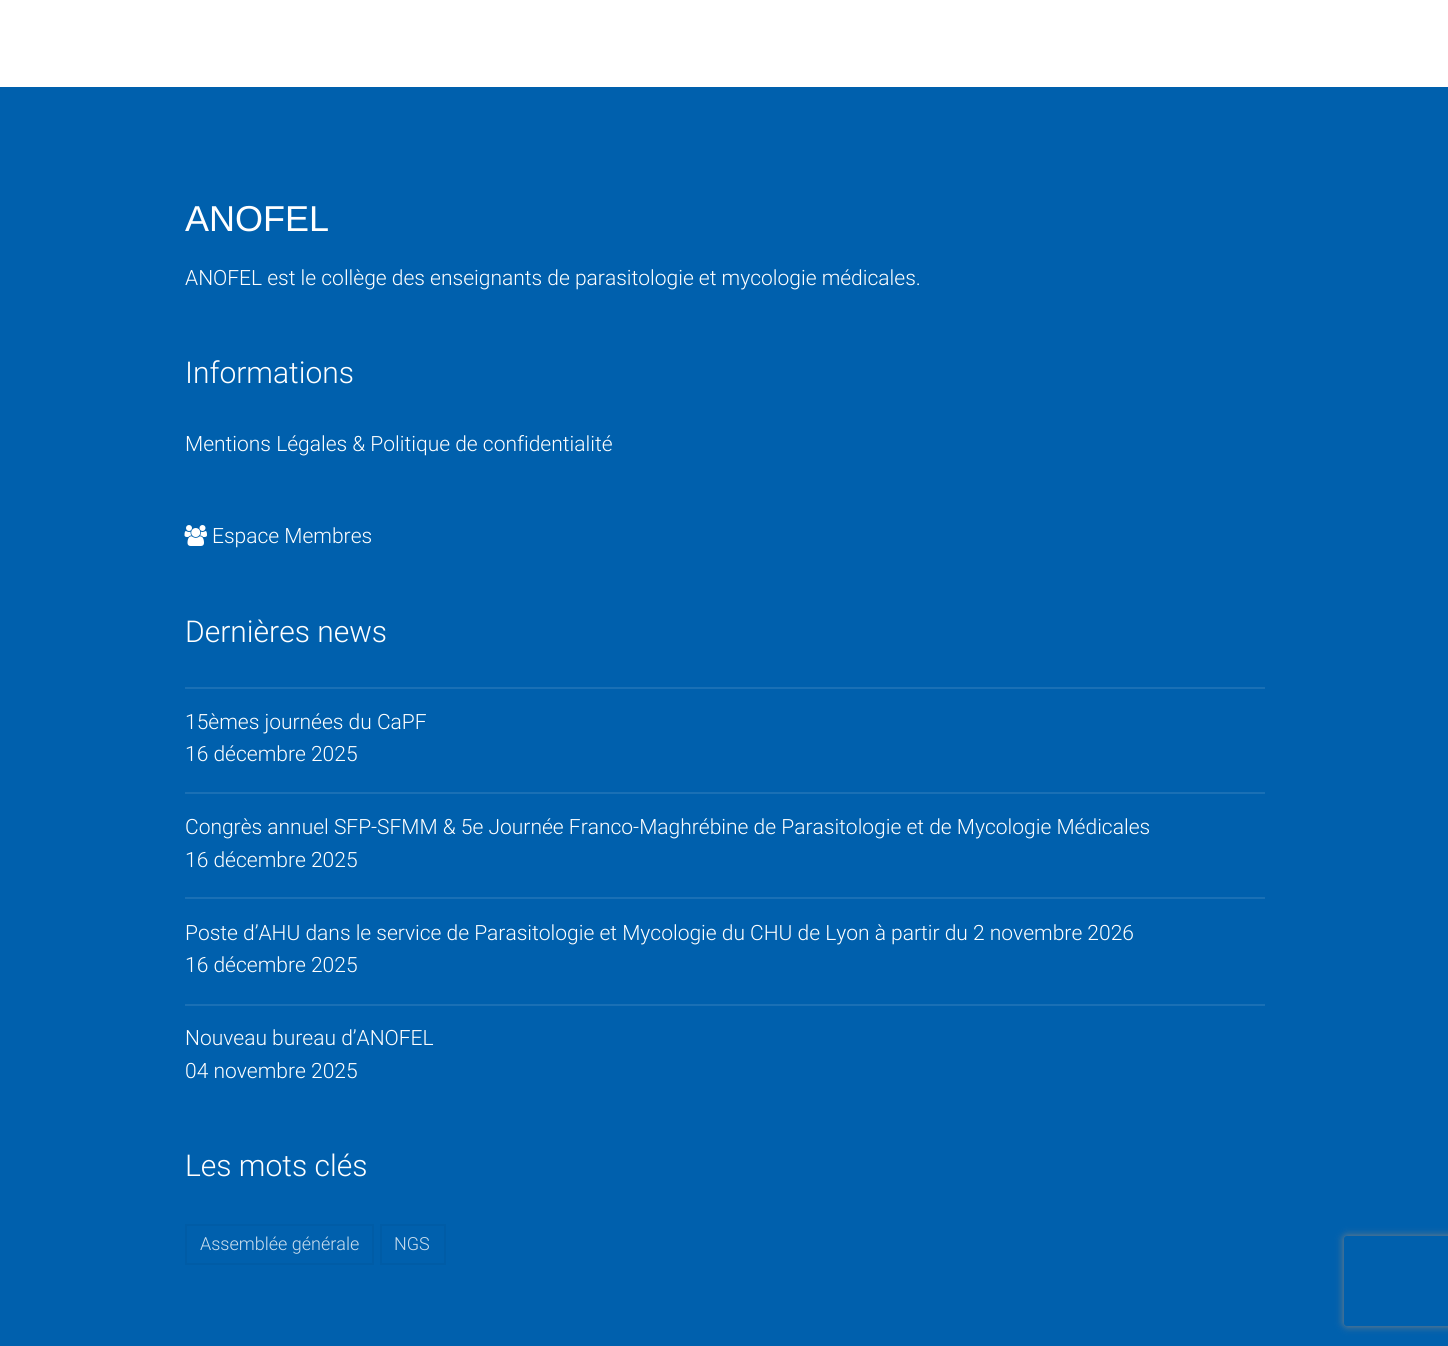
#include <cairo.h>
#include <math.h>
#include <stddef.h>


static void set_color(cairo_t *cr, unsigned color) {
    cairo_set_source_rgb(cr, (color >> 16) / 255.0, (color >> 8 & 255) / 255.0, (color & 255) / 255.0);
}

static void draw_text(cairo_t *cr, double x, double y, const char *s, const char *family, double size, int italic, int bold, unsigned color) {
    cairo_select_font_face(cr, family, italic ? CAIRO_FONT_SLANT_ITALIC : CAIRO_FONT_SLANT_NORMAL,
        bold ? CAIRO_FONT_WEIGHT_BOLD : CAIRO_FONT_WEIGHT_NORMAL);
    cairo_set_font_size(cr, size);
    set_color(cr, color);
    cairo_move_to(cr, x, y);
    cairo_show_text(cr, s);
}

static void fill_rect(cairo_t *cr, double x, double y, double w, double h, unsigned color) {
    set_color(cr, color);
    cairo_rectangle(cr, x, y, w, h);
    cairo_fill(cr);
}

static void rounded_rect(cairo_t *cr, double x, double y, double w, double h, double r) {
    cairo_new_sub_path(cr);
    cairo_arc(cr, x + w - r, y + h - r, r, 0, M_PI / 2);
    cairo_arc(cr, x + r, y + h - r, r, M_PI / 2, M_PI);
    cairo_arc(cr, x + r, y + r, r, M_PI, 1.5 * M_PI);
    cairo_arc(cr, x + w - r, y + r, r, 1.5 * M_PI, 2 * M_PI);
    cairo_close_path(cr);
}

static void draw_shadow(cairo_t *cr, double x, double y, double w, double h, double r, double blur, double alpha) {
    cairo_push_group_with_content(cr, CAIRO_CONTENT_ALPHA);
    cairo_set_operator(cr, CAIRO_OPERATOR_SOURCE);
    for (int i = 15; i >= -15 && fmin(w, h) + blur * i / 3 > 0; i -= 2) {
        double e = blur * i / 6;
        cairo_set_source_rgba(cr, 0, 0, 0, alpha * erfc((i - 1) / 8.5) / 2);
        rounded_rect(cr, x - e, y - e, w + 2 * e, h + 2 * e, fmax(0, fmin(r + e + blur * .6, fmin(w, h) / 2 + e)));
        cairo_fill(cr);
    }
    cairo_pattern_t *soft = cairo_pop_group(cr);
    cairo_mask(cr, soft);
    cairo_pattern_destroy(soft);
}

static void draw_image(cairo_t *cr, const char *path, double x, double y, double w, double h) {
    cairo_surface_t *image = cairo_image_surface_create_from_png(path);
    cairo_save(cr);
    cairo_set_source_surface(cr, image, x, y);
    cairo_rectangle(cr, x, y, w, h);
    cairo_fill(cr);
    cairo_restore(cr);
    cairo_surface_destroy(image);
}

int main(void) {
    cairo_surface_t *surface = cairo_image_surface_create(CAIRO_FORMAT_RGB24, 1448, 1346);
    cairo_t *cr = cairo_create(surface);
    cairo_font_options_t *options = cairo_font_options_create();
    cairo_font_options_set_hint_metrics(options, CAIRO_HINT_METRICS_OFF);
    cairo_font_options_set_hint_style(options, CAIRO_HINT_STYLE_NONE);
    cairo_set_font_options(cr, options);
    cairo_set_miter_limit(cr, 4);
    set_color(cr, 0xFFFFFF);
    cairo_paint(cr);
    fill_rect(cr, 0, 87, 1448, 1259, 0x0060AD);
    draw_text(cr, 185, 231, "ANOFEL", "Liberation Sans", 36, 0, 0, 0xFFFFFF);
    draw_text(cr, 185, 285, "ANOFEL est le collège des enseignants de parasitologie et mycologie médicales.", "Roboto Light", 21, 0, 0, 0xFFFFFF);
    draw_text(cr, 185, 383, "Informations", "Roboto Light", 30, 0, 0, 0xFFFFFF);
    draw_text(cr, 185, 451, "Mentions Légales & Politique de confidentialité", "Roboto Light", 21, 0, 0, 0xFFFFFF);
    draw_image(cr, "assets/img1.png", 184, 525, 23, 21);
    draw_text(cr, 212, 543, "Espace Membres", "Roboto Light", 21, 0, 0, 0xFFFFFF);
    draw_text(cr, 185, 642, "Dernières news", "Roboto Light", 30, 0, 0, 0xFFFFFF);
    fill_rect(cr, 185, 687, 1080, 2, 0x1A70B5);
    draw_text(cr, 185, 729, "15èmes journées du CaPF", "Roboto Light", 21, 0, 0, 0xFFFFFF);
    draw_text(cr, 185, 761, "16 décembre 2025", "Roboto Light", 21, 0, 0, 0xFFFFFF);
    fill_rect(cr, 185, 792, 1080, 2, 0x1A70B5);
    draw_text(cr, 185, 834, "Congrès annuel SFP-SFMM & 5e Journée Franco-Maghrébine de Parasitologie et de Mycologie Médicales", "Roboto Light", 21, 0, 0, 0xFFFFFF);
    draw_text(cr, 185, 867, "16 décembre 2025", "Roboto Light", 21, 0, 0, 0xFFFFFF);
    fill_rect(cr, 185, 897, 1080, 2, 0x1A70B5);
    draw_text(cr, 185, 940, "Poste d’AHU dans le service de Parasitologie et Mycologie du CHU de Lyon à partir du 2 novembre 2026", "Roboto Light", 21, 0, 0, 0xFFFFFF);
    draw_text(cr, 185, 972, "16 décembre 2025", "Roboto Light", 21, 0, 0, 0xFFFFFF);
    fill_rect(cr, 185, 1004, 1080, 2, 0x1A70B5);
    draw_text(cr, 185, 1045, "Nouveau bureau d’ANOFEL", "Roboto Light", 21, 0, 0, 0xFFFFFF);
    draw_text(cr, 185, 1078, "04 novembre 2025", "Roboto Light", 21, 0, 0, 0xFFFFFF);
    draw_text(cr, 185, 1176, "Les mots clés", "Roboto Light", 30, 0, 0, 0xFFFFFF);
    cairo_rectangle(cr, 186, 1225, 187, 39);
    set_color(cr, 0x005CA6);
    cairo_stroke(cr);
    draw_text(cr, 200, 1250, "Assemblée générale", "Roboto Light", 18, 0, 0, 0xCCDFEF);
    cairo_rectangle(cr, 381, 1225, 64, 39);
    set_color(cr, 0x005CA6);
    cairo_stroke(cr);
    draw_text(cr, 394, 1250, "NGS", "Roboto Light", 18, 0, 0, 0xCCDFEF);
    cairo_save(cr);
    cairo_set_fill_rule(cr, CAIRO_FILL_RULE_EVEN_ODD);
    cairo_new_path(cr);
    cairo_move_to(cr, 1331, 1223);
    cairo_line_to(cr, 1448, 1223);
    cairo_line_to(cr, 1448, 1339);
    cairo_line_to(cr, 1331, 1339);
    cairo_close_path(cr);
    cairo_move_to(cr, 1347, 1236);
    cairo_line_to(cr, 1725, 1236);
    cairo_curve_to(cr, 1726.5, 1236, 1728, 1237.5, 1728, 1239);
    cairo_line_to(cr, 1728, 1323);
    cairo_curve_to(cr, 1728, 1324.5, 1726.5, 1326, 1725, 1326);
    cairo_line_to(cr, 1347, 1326);
    cairo_curve_to(cr, 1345.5, 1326, 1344, 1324.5, 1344, 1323);
    cairo_line_to(cr, 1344, 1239);
    cairo_curve_to(cr, 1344, 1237.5, 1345.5, 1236, 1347, 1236);
    cairo_close_path(cr);
    cairo_clip(cr);
    set_color(cr, 0x808080);
    draw_shadow(cr, 1344, 1236, 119, 90, 3, 4, 1);
    cairo_restore(cr);
    cairo_surface_write_to_png(surface, "output.png");
    cairo_font_options_destroy(options);
    cairo_destroy(cr);
    cairo_surface_destroy(surface);
    return 0;
}
